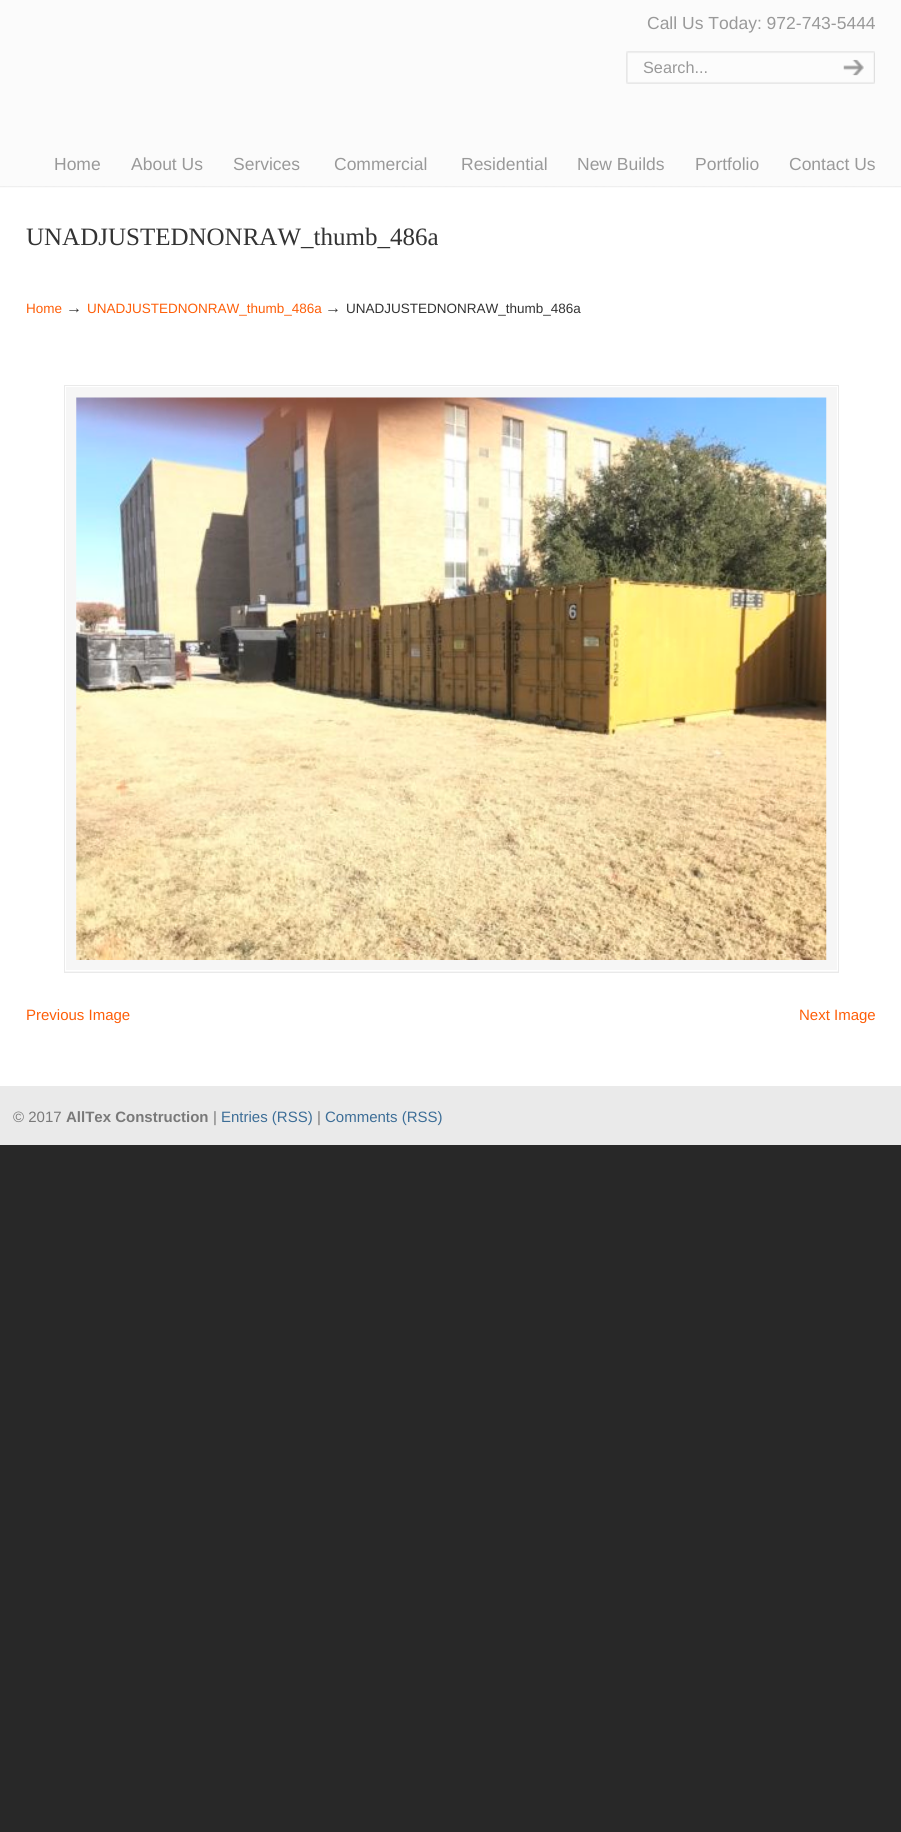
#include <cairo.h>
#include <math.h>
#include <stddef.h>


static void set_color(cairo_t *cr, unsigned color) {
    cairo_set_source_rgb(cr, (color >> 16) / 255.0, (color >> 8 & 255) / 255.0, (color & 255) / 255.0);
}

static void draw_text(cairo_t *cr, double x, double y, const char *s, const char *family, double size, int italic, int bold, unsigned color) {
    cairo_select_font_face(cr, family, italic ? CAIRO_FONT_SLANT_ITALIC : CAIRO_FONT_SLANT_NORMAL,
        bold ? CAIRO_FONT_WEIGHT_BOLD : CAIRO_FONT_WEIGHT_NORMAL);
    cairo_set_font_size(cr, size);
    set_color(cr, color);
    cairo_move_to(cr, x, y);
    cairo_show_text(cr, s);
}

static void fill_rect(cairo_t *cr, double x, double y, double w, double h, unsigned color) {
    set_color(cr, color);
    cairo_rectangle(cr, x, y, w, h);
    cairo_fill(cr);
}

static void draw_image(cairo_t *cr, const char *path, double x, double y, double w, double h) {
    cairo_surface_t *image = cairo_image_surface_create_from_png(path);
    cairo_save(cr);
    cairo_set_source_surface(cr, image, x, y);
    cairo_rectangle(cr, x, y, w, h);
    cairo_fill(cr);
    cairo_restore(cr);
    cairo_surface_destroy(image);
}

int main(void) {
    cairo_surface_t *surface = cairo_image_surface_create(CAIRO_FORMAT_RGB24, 901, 1832);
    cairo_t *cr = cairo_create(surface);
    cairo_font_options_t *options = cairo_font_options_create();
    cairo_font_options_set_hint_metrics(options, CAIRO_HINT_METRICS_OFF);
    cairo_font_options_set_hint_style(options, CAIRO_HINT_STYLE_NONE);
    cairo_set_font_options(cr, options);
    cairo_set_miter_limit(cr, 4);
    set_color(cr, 0x282828);
    cairo_paint(cr);
    fill_rect(cr, 0, 0, 901, 188, 0xFBFBFB);
    draw_text(cr, 647, 29, "Call Us Today: 972-743-5444", "Liberation Sans", 17.5, 0, 0, 0x999999);
    draw_image(cr, "assets/img1.png", 626, 51, 199, 33);
    draw_text(cr, 643, 73, "Search...", "Liberation Sans", 16.25, 0, 0, 0x999999);
    draw_image(cr, "assets/img2.png", 825, 51, 50, 33);
    draw_text(cr, 54, 170, "Home", "Liberation Sans", 17.5, 0, 0, 0x999999);
    draw_text(cr, 131, 170, "About Us", "Liberation Sans", 17.5, 0, 0, 0x999999);
    draw_text(cr, 233, 170, "Services", "Liberation Sans", 17.5, 0, 0, 0x999999);
    draw_text(cr, 334, 170, "Commercial", "Liberation Sans", 17.5, 0, 0, 0x999999);
    draw_text(cr, 461, 170, "Residential", "Liberation Sans", 17.5, 0, 0, 0x999999);
    draw_text(cr, 577, 170, "New Builds", "Liberation Sans", 17.5, 0, 0, 0x999999);
    draw_text(cr, 695, 170, "Portfolio", "Liberation Sans", 17.5, 0, 0, 0x999999);
    draw_text(cr, 789, 170, "Contact Us", "Liberation Sans", 17.5, 0, 0, 0x999999);
    draw_image(cr, "assets/img3.png", 0, 186, 901, 1);
    fill_rect(cr, 0, 188, 901, 898, 0xFFFFFF);
    draw_text(cr, 26, 245, "UNADJUSTEDNONRAW_thumb_486a", "Liberation Serif", 25, 0, 0, 0x333333);
    draw_text(cr, 26, 313, "Home", "Liberation Sans", 13.5, 0, 0, 0xFE5E08);
    draw_text(cr, 66, 313, "→", "Liberation Sans", 16, 0, 0, 0x333333);
    draw_text(cr, 87, 313, "UNADJUSTEDNONRAW_thumb_486a", "Liberation Sans", 13.5, 0, 0, 0xFE5E08);
    draw_text(cr, 325, 313, "→", "Liberation Sans", 16, 0, 0, 0x333333);
    draw_text(cr, 346, 313, "UNADJUSTEDNONRAW_thumb_486a", "Liberation Sans", 13.5, 0, 0, 0x333333);
    fill_rect(cr, 65, 387, 773, 585, 0xF6F6F6);
    cairo_rectangle(cr, 64.5, 385.5, 774, 587);
    set_color(cr, 0xEAEAEA);
    cairo_set_line_width(cr, 1);
    cairo_stroke(cr);
    cairo_rectangle(cr, 65.5, 386.5, 772, 584);
    set_color(cr, 0xFFFFFF);
    cairo_stroke(cr);
    draw_image(cr, "assets/img4.png", 76, 397, 751, 563);
    draw_text(cr, 26, 1020, "Previous Image", "Liberation Sans", 15, 0, 0, 0xFE5E08);
    draw_text(cr, 799, 1020, "Next Image", "Liberation Sans", 15, 0, 0, 0xFE5E08);
    fill_rect(cr, 0, 1086, 901, 59, 0xEAEAEA);
    draw_text(cr, 13, 1122, "© 2017", "Liberation Sans", 15, 0, 0, 0x797979);
    draw_text(cr, 66, 1122, "AllTex Construction", "Liberation Sans", 15, 0, 1, 0x797979);
    draw_text(cr, 213, 1122, "|", "Liberation Sans", 15, 0, 0, 0x797979);
    draw_text(cr, 221, 1122, "Entries (RSS)", "Liberation Sans", 15, 0, 0, 0x3D6E97);
    draw_text(cr, 317, 1122, "|", "Liberation Sans", 15, 0, 0, 0x797979);
    draw_text(cr, 325, 1122, "Comments (RSS)", "Liberation Sans", 15, 0, 0, 0x3D6E97);
    cairo_surface_write_to_png(surface, "output.png");
    cairo_font_options_destroy(options);
    cairo_destroy(cr);
    cairo_surface_destroy(surface);
    return 0;
}
